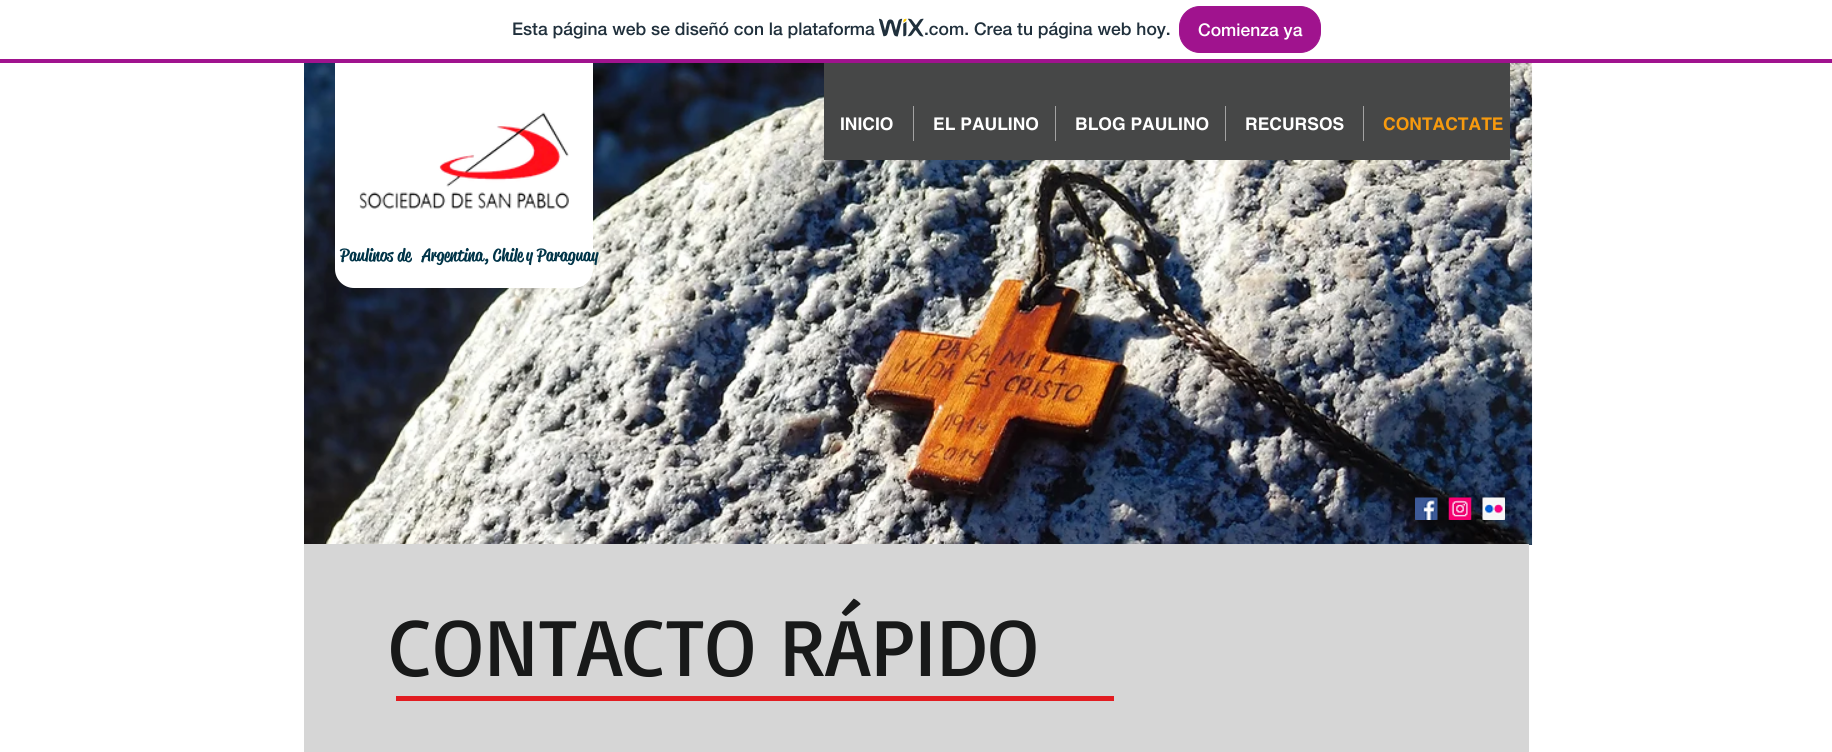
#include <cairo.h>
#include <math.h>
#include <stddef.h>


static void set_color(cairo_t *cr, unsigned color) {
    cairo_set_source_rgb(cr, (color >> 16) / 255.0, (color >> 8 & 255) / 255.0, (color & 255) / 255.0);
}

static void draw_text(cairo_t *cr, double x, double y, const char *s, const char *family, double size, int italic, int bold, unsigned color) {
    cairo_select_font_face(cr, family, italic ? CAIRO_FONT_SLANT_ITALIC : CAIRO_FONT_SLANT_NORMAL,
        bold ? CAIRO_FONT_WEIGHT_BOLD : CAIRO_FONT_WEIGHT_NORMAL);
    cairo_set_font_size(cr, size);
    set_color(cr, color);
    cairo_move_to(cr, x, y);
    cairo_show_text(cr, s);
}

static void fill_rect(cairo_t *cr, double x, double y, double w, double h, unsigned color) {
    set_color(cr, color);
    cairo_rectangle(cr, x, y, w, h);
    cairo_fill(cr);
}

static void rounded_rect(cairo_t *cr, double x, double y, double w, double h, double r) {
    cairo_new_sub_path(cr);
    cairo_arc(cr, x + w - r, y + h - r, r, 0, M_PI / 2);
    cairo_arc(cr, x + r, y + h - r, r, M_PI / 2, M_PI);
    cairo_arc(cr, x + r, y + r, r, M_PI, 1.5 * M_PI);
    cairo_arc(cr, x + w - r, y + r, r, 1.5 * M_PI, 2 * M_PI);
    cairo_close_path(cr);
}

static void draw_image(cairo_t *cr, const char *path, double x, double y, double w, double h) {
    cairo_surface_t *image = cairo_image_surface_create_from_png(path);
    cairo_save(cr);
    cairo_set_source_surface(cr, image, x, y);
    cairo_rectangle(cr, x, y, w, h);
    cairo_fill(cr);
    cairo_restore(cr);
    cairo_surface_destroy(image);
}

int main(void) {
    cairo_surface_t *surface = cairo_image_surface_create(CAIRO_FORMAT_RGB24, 1832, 752);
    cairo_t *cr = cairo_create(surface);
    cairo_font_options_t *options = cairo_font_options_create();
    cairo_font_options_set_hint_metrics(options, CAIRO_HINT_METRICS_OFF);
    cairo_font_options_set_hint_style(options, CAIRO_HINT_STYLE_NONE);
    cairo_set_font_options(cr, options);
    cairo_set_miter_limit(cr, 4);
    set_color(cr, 0xFFFFFF);
    cairo_paint(cr);
    fill_rect(cr, 0, 59, 1832, 4, 0xA0138E);
    draw_text(cr, 512, 35, "Esta página web se diseñó con la plataforma", "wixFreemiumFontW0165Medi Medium", 17.5, 0, 0, 0x20303C);
    draw_image(cr, "assets/img1.png", 879, 18, 45, 19);
    draw_text(cr, 924, 35, ".com. Crea tu página web hoy.", "wixFreemiumFontW0165Medi Medium", 17.5, 0, 0, 0x20303C);
    set_color(cr, 0xA0138E);
    rounded_rect(cr, 1179.5, 6.5, 141, 46, 20.5);
    cairo_fill_preserve(cr);
    cairo_set_line_width(cr, 1);
    cairo_stroke(cr);
    draw_text(cr, 1198, 36, "Comienza ya", "wixFreemiumFontW0165Medi Medium", 17.5, 0, 0, 0xFFFFFF);
    draw_image(cr, "assets/img2.png", 304, 63, 1229, 482);
    fill_rect(cr, 335, 63, 258, 19, 0xFFFFFF);
    rounded_rect(cr, 335, 63, 258, 225, 19);
    cairo_fill(cr);
    draw_image(cr, "assets/img3.png", 359, 112, 210, 97);
    fill_rect(cr, 824, 63, 686, 97, 0x464747);
    draw_text(cr, 840, 130, "INICIO", "helvetica", 17.5, 0, 1, 0xFFFFFF);
    fill_rect(cr, 913, 106, 1, 35, 0xA3A3A3);
    draw_text(cr, 933, 130, "EL PAULINO", "helvetica", 17.5, 0, 1, 0xFFFFFF);
    fill_rect(cr, 1055, 106, 1, 35, 0xA3A3A3);
    draw_text(cr, 1075, 130, "BLOG PAULINO", "helvetica", 17.5, 0, 1, 0xFFFFFF);
    fill_rect(cr, 1225, 106, 1, 35, 0xA3A3A3);
    draw_text(cr, 1245, 130, "RECURSOS", "helvetica", 17.5, 0, 1, 0xFFFFFF);
    fill_rect(cr, 1363, 106, 1, 35, 0xA3A3A3);
    draw_text(cr, 1383, 130, "CONTACTATE", "helvetica", 17.5, 0, 1, 0xF79A0E);
    draw_text(cr, 340, 261, "Paulinos de", "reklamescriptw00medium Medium", 17.5, 0, 0, 0x003448);
    draw_text(cr, 422, 261, "Argentina, Chile", "reklamescriptw00medium Medium", 17.5, 0, 0, 0x003448);
    draw_text(cr, 526, 261, "y Paraguay", "reklamescriptw00medium Medium", 17.5, 0, 0, 0x003448);
    draw_image(cr, "assets/img4.png", 1415, 497, 23, 23);
    draw_image(cr, "assets/img5.png", 1448, 497, 24, 23);
    draw_image(cr, "assets/img6.png", 1482, 497, 23, 23);
    fill_rect(cr, 304, 544, 1225, 208, 0xD6D6D6);
    draw_text(cr, 389, 676, "CONTACTO RÁPIDO", "Basic", 82.5, 0, 0, 0x181919);
    fill_rect(cr, 396, 696, 718, 5, 0xE21C21);
    cairo_surface_write_to_png(surface, "output.png");
    cairo_font_options_destroy(options);
    cairo_destroy(cr);
    cairo_surface_destroy(surface);
    return 0;
}
